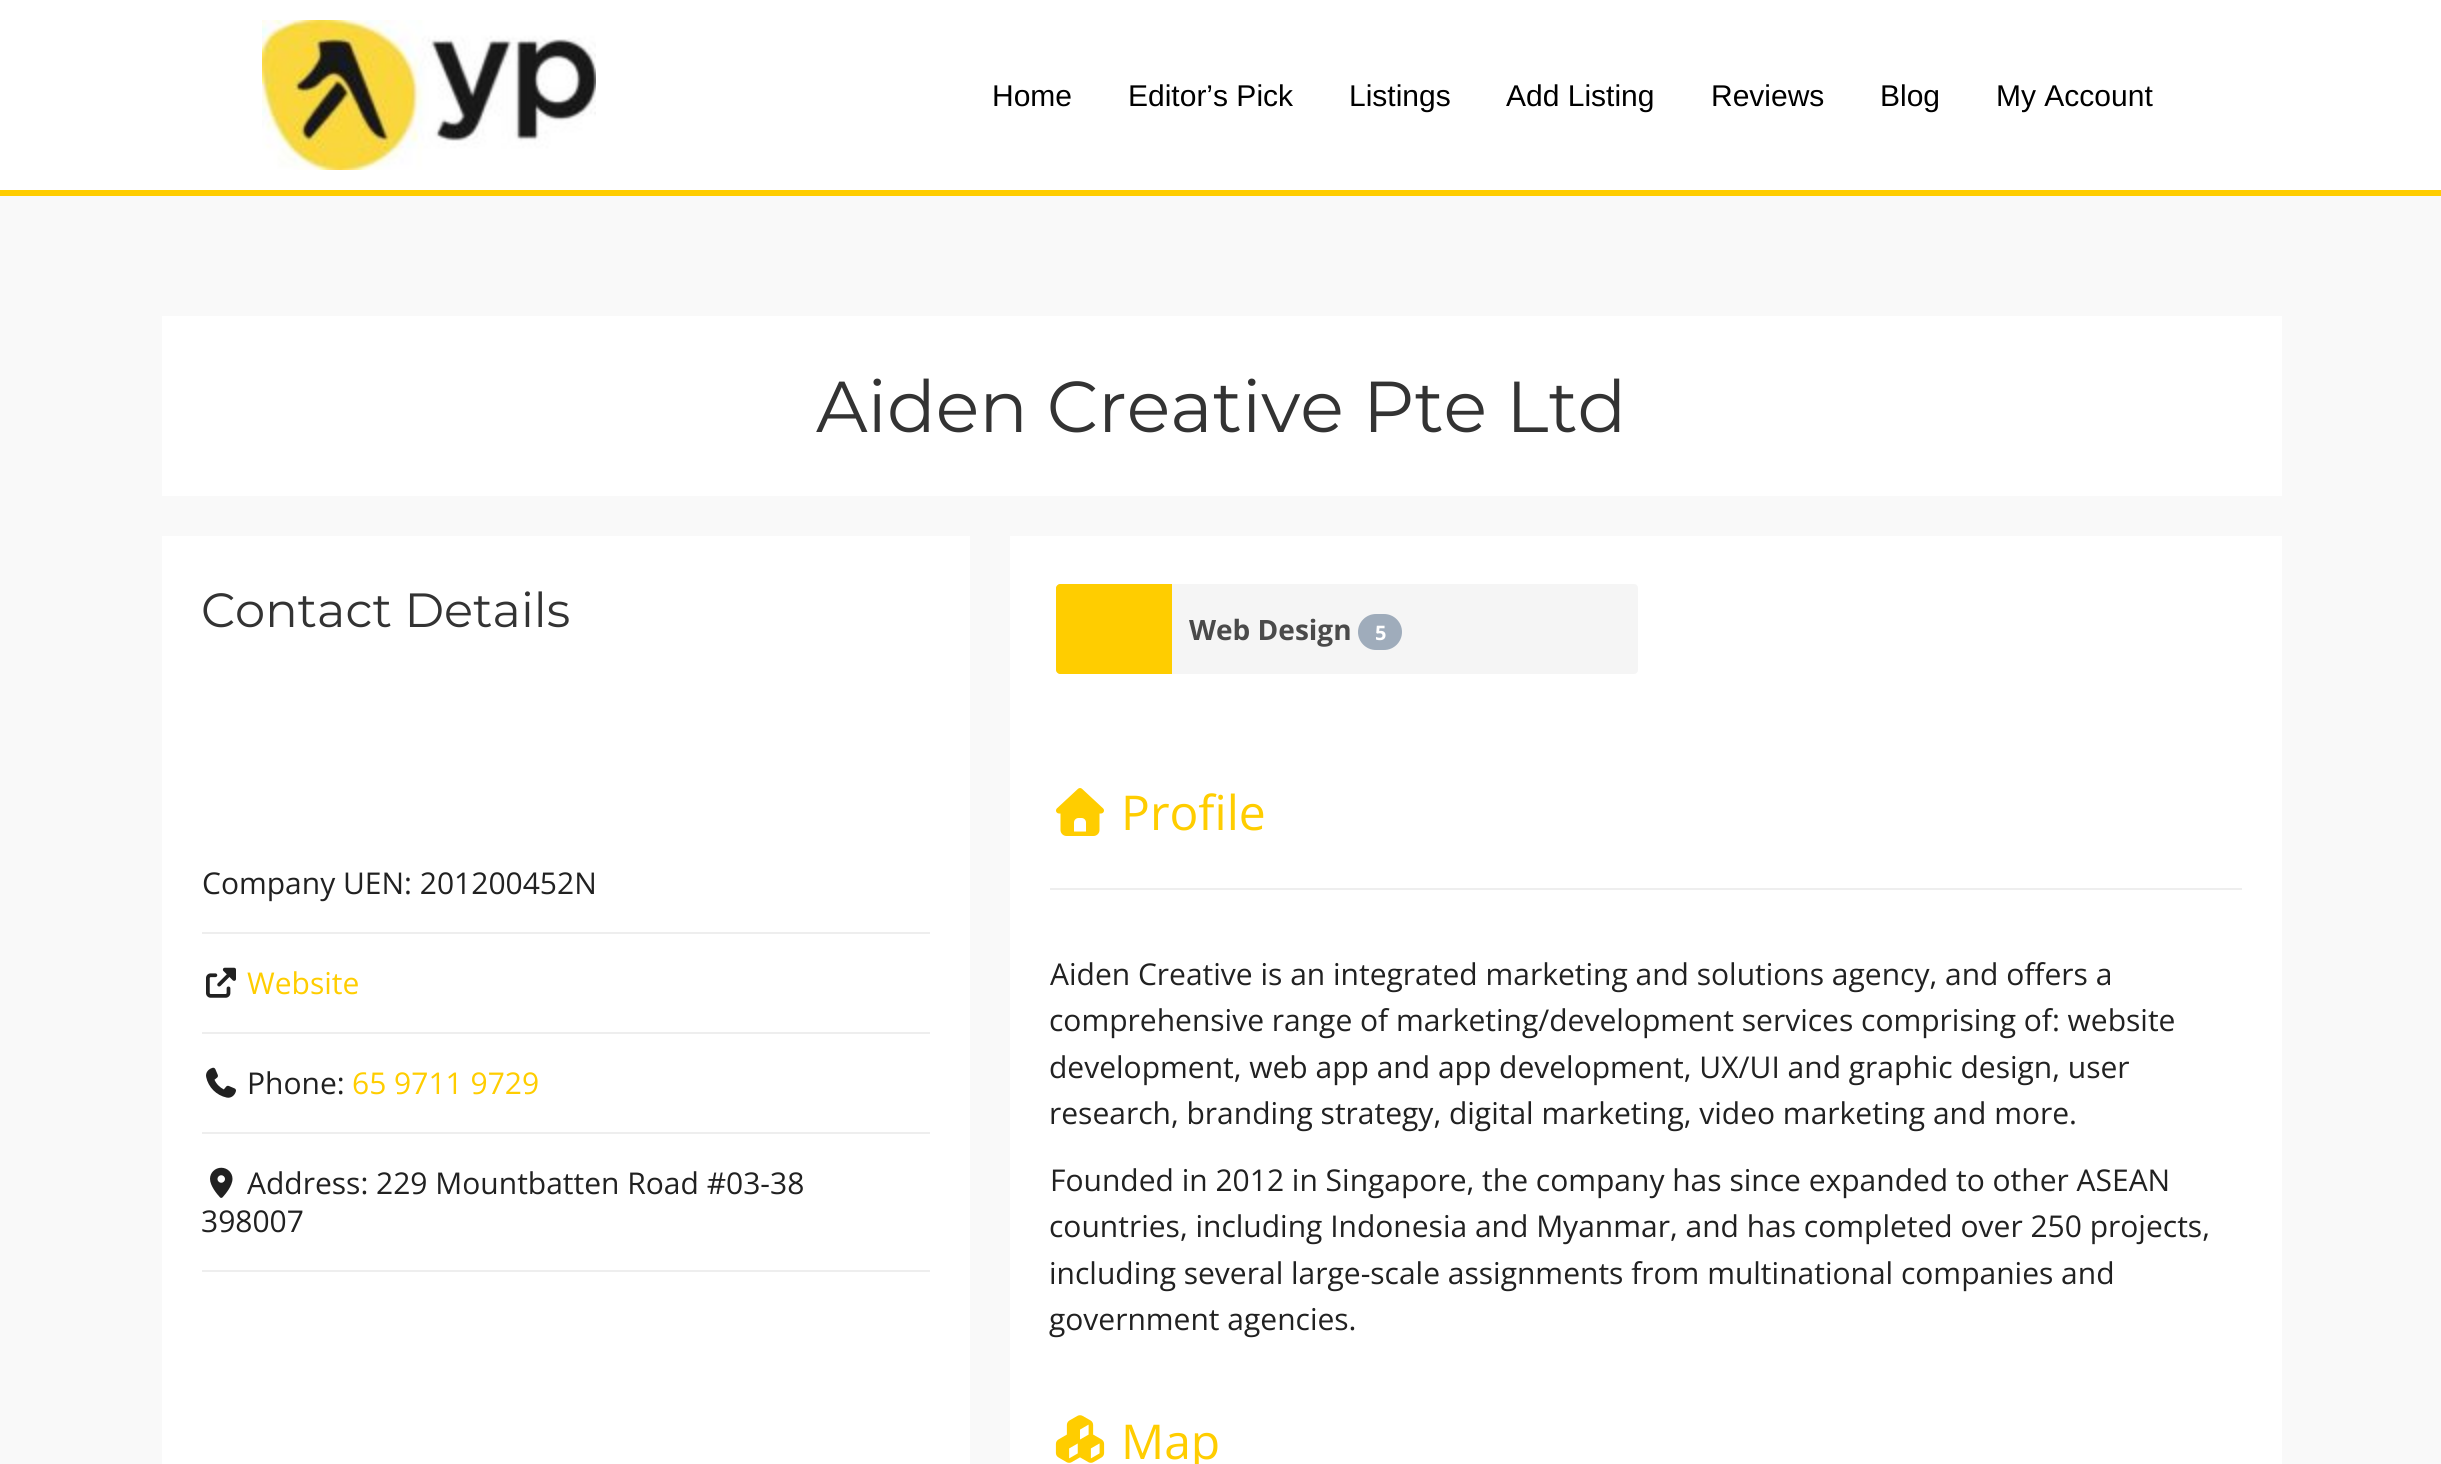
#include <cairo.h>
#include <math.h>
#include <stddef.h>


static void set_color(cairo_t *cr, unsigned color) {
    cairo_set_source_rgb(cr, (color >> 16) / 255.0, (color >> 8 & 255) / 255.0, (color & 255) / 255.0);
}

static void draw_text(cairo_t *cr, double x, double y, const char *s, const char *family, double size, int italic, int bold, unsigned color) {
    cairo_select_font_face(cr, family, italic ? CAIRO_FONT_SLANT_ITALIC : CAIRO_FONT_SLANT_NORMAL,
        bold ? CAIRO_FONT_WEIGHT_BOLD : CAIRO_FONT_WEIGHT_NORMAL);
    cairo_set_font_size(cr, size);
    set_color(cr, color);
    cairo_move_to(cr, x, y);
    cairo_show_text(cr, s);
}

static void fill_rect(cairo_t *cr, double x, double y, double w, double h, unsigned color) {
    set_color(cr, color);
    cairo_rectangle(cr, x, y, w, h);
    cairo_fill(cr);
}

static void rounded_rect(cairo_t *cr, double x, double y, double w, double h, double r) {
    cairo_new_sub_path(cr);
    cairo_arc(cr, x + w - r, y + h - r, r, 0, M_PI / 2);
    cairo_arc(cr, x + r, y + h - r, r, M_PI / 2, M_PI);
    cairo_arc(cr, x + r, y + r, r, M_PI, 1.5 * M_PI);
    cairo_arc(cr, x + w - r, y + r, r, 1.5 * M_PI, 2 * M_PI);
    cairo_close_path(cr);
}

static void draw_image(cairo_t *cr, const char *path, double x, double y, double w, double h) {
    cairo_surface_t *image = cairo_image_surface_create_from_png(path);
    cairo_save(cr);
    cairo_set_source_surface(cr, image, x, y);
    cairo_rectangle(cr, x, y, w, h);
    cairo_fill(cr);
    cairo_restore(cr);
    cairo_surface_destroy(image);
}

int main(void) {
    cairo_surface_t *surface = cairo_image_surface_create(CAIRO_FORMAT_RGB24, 2441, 1464);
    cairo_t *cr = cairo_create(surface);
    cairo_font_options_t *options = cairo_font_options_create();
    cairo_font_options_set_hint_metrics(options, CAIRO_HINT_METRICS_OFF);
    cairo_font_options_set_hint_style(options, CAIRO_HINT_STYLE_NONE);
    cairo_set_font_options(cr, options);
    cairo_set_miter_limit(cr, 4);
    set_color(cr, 0xFFFFFF);
    cairo_paint(cr);
    fill_rect(cr, 0, 190, 2441, 6, 0xFFCD00);
    draw_image(cr, "assets/img1.png", 262, 20, 334, 150);
    draw_text(cr, 992, 106, "Home", "Liberation Sans", 30, 0, 0, 0x000000);
    draw_text(cr, 1128, 106, "Editor’s Pick", "Liberation Sans", 30, 0, 0, 0x000000);
    draw_text(cr, 1349, 106, "Listings", "Liberation Sans", 30, 0, 0, 0x000000);
    draw_text(cr, 1506, 106, "Add Listing", "Liberation Sans", 30, 0, 0, 0x000000);
    draw_text(cr, 1711, 106, "Reviews", "Liberation Sans", 30, 0, 0, 0x000000);
    draw_text(cr, 1880, 106, "Blog", "Liberation Sans", 30, 0, 0, 0x000000);
    draw_text(cr, 1996, 106, "My Account", "Liberation Sans", 30, 0, 0, 0x000000);
    fill_rect(cr, 0, 196, 2441, 1268, 0xF9F9F9);
    fill_rect(cr, 162, 316, 2120, 180, 0xFFFFFF);
    draw_text(cr, 816, 432, "Aiden Creative Pte Ltd", "Montserrat Thin", 72, 0, 0, 0x333333);
    fill_rect(cr, 162, 536, 808, 928, 0xFFFFFF);
    draw_text(cr, 201, 627, "Contact Details", "Montserrat Thin", 48, 0, 0, 0x333333);
    fill_rect(cr, 202, 932, 728, 2, 0xEEEEEE);
    draw_text(cr, 202, 894, "Company UEN: 201200452N", "Open Sans", 30, 0, 0, 0x212121);
    fill_rect(cr, 202, 1032, 728, 2, 0xEEEEEE);
    draw_image(cr, "assets/img2.png", 206, 967, 30, 31);
    draw_text(cr, 247, 994, "Website", "Open Sans", 30, 0, 0, 0xFFCD00);
    fill_rect(cr, 202, 1132, 728, 2, 0xEEEEEE);
    draw_image(cr, "assets/img3.png", 206, 1067, 30, 31);
    draw_text(cr, 247, 1094, "Phone:", "Open Sans", 30, 0, 0, 0x212121);
    draw_text(cr, 352, 1094, "65 9711 9729", "Open Sans", 30, 0, 0, 0xFFCD00);
    fill_rect(cr, 202, 1270, 728, 2, 0xEEEEEE);
    draw_image(cr, "assets/img4.png", 210, 1167, 23, 31);
    draw_text(cr, 247, 1194, "Address: 229 Mountbatten Road #03-38", "Open Sans", 30, 0, 0, 0x212121);
    draw_text(cr, 201, 1232, "398007", "Open Sans", 30, 0, 0, 0x212121);
    fill_rect(cr, 1010, 536, 1272, 928, 0xFFFFFF);
    set_color(cr, 0xF5F5F5);
    rounded_rect(cr, 1056, 584, 582, 90, 4);
    cairo_fill(cr);
    set_color(cr, 0xFFCD00);
    cairo_new_path(cr);
    cairo_move_to(cr, 1060, 584);
    cairo_line_to(cr, 1172, 584);
    cairo_line_to(cr, 1172, 674);
    cairo_line_to(cr, 1060, 674);
    cairo_curve_to(cr, 1058, 674, 1056, 672, 1056, 670);
    cairo_line_to(cr, 1056, 588);
    cairo_curve_to(cr, 1056, 586, 1058, 584, 1060, 584);
    cairo_close_path(cr);
    cairo_fill(cr);
    draw_text(cr, 1189, 640, "Web Design", "Open Sans", 28, 0, 1, 0x4A4A4A);
    set_color(cr, 0x9FACBB);
    rounded_rect(cr, 1358, 614, 44, 36, 18);
    cairo_fill(cr);
    draw_text(cr, 1375, 640, "5", "Open Sans", 20, 0, 1, 0xFFFFFF);
    draw_image(cr, "assets/img5.png", 1056, 788, 48, 48);
    draw_text(cr, 1121, 830, "Profile", "Open Sans", 48, 0, 0, 0xFFCD00);
    fill_rect(cr, 1050, 888, 1192, 2, 0xEEEEEE);
    draw_text(cr, 1050, 985, "Aiden Creative is an integrated marketing and solutions agency, and offers a", "Open Sans", 30, 0, 0, 0x212121);
    draw_text(cr, 1049, 1031, "comprehensive range of marketing/development services comprising of: website", "Open Sans", 30, 0, 0, 0x212121);
    draw_text(cr, 1049, 1078, "development, web app and app development, UX/UI and graphic design, user", "Open Sans", 30, 0, 0, 0x212121);
    draw_text(cr, 1049, 1124, "research, branding strategy, digital marketing, video marketing and more.", "Open Sans", 30, 0, 0, 0x212121);
    draw_text(cr, 1050, 1191, "Founded in 2012 in Singapore, the company has since expanded to other ASEAN", "Open Sans", 30, 0, 0, 0x212121);
    draw_text(cr, 1049, 1237, "countries, including Indonesia and Myanmar, and has completed over 250 projects,", "Open Sans", 30, 0, 0, 0x212121);
    draw_text(cr, 1049, 1284, "including several large-scale assignments from multinational companies and", "Open Sans", 30, 0, 0, 0x212121);
    draw_text(cr, 1049, 1330, "government agencies.", "Open Sans", 30, 0, 0, 0x212121);
    draw_image(cr, "assets/img6.png", 1055, 1415, 50, 48);
    draw_text(cr, 1121, 1459, "Map", "Open Sans", 48, 0, 0, 0xFFCD00);
    cairo_surface_write_to_png(surface, "output.png");
    cairo_font_options_destroy(options);
    cairo_destroy(cr);
    cairo_surface_destroy(surface);
    return 0;
}
